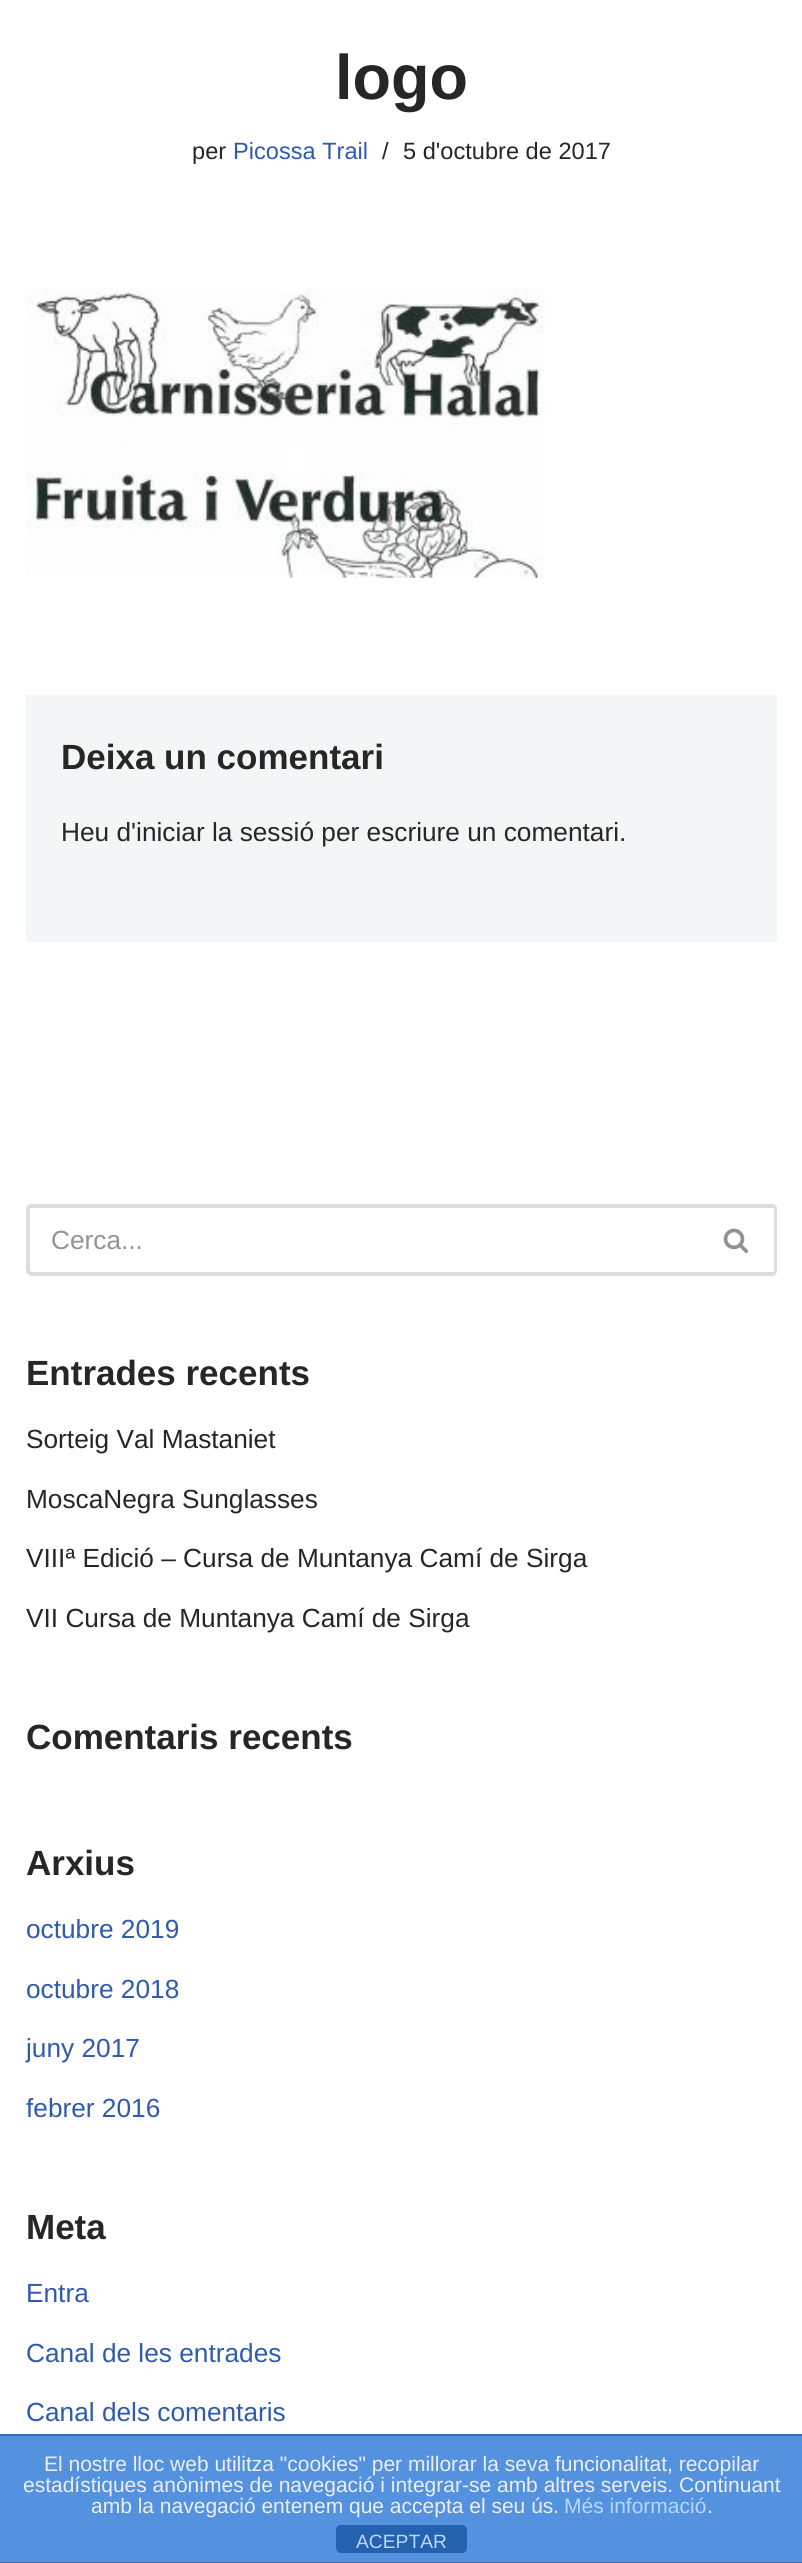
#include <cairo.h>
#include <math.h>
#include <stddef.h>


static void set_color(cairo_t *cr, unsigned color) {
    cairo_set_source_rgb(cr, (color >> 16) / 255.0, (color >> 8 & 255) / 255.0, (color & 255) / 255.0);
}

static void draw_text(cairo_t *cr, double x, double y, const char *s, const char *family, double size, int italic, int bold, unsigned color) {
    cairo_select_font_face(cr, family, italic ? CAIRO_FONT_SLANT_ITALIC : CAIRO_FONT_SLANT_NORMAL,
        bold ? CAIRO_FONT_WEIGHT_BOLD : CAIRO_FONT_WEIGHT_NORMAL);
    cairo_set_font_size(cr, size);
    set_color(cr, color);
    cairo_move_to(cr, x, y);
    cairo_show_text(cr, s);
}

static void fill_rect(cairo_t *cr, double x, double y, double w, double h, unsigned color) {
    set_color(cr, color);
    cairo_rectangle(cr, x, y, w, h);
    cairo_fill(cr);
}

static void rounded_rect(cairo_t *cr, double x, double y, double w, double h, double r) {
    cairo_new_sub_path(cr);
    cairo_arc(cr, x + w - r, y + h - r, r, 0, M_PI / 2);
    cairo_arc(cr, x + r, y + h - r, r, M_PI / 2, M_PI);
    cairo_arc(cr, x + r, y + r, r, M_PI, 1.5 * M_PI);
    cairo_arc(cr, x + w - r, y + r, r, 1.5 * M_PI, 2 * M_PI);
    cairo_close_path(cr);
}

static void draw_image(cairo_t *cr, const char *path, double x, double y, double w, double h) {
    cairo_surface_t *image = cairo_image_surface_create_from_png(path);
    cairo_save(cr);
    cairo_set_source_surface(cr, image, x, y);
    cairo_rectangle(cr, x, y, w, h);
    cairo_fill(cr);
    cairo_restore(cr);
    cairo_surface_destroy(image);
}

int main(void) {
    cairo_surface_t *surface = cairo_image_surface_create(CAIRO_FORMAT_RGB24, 802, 2563);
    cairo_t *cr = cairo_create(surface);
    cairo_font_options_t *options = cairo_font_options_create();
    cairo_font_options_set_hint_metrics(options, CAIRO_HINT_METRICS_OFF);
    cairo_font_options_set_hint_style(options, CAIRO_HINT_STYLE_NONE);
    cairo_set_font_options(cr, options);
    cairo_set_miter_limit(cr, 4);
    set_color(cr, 0xFFFFFF);
    cairo_paint(cr);
    draw_text(cr, 335, 99, "logo", "Liberation Sans", 63, 0, 1, 0x272626);
    draw_text(cr, 192, 159, "per", "Liberation Sans", 23.6, 0, 0, 0x272626);
    draw_text(cr, 233, 159, "Picossa Trail", "Liberation Sans", 23.6, 0, 0, 0x2F5AAE);
    draw_text(cr, 382, 159, "/", "Liberation Sans", 23.6, 0, 0, 0x272626);
    draw_text(cr, 403, 159, "5 d'octubre de 2017", "Liberation Sans", 23.6, 0, 0, 0x272626);
    draw_image(cr, "assets/img1.png", 26, 288, 519, 290);
    fill_rect(cr, 26, 695, 751, 247, 0xF4F5F7);
    draw_text(cr, 61, 769, "Deixa un comentari", "Liberation Sans", 35, 0, 1, 0x272626);
    draw_text(cr, 61, 841, "Heu d'iniciar la sessió per escriure un comentari.", "Liberation Sans", 26.25, 0, 0, 0x272626);
    set_color(cr, 0xDDDDDD);
    cairo_set_fill_rule(cr, CAIRO_FILL_RULE_EVEN_ODD);
    cairo_new_path(cr);
    cairo_move_to(cr, 32, 1204);
    cairo_line_to(cr, 698, 1204);
    cairo_line_to(cr, 698, 1276);
    cairo_line_to(cr, 32, 1276);
    cairo_curve_to(cr, 29, 1276, 26, 1273, 26, 1270);
    cairo_line_to(cr, 26, 1209);
    cairo_curve_to(cr, 26, 1206, 29, 1204, 32, 1204);
    cairo_close_path(cr);
    cairo_move_to(cr, 32, 1208);
    cairo_line_to(cr, 698, 1208);
    cairo_line_to(cr, 698, 1272);
    cairo_line_to(cr, 32, 1272);
    cairo_curve_to(cr, 31, 1272, 30, 1271, 30, 1270);
    cairo_line_to(cr, 30, 1209);
    cairo_curve_to(cr, 30, 1208, 31, 1208, 32, 1208);
    cairo_close_path(cr);
    cairo_fill(cr);
    draw_text(cr, 51, 1249, "Cerca...", "Liberation Sans", 26.25, 0, 0, 0x939393);
    set_color(cr, 0xDDDDDD);
    cairo_new_path(cr);
    cairo_move_to(cr, 698, 1204);
    cairo_line_to(cr, 772, 1204);
    cairo_curve_to(cr, 775, 1204, 777, 1206, 777, 1209);
    cairo_line_to(cr, 777, 1270);
    cairo_curve_to(cr, 777, 1273, 775, 1276, 772, 1276);
    cairo_line_to(cr, 698, 1276);
    cairo_close_path(cr);
    cairo_move_to(cr, 698, 1208);
    cairo_line_to(cr, 772, 1208);
    cairo_curve_to(cr, 773, 1208, 774, 1208, 774, 1209);
    cairo_line_to(cr, 774, 1270);
    cairo_curve_to(cr, 774, 1271, 773, 1272, 772, 1272);
    cairo_line_to(cr, 698, 1272);
    cairo_close_path(cr);
    cairo_fill(cr);
    draw_image(cr, "assets/img2.png", 723, 1228, 25, 25);
    draw_text(cr, 26, 1385, "Entrades recents", "Liberation Sans", 35, 0, 1, 0x272626);
    draw_text(cr, 26, 1448, "Sorteig Val Mastaniet", "Liberation Sans", 26.25, 0, 0, 0x272626);
    draw_text(cr, 26, 1508, "MoscaNegra Sunglasses", "Liberation Sans", 26.25, 0, 0, 0x272626);
    draw_text(cr, 26, 1567, "VIIIª Edició – Cursa de Muntanya Camí de Sirga", "Liberation Sans", 26.25, 0, 0, 0x272626);
    draw_text(cr, 26, 1627, "VII Cursa de Muntanya Camí de Sirga", "Liberation Sans", 26.25, 0, 0, 0x272626);
    draw_text(cr, 26, 1749, "Comentaris recents", "Liberation Sans", 35, 0, 1, 0x272626);
    draw_text(cr, 26, 1875, "Arxius", "Liberation Sans", 35, 0, 1, 0x272626);
    draw_text(cr, 26, 1938, "octubre 2019", "Liberation Sans", 26.25, 0, 0, 0x2F5AAE);
    draw_text(cr, 26, 1998, "octubre 2018", "Liberation Sans", 26.25, 0, 0, 0x2F5AAE);
    draw_text(cr, 26, 2057, "juny 2017", "Liberation Sans", 26.25, 0, 0, 0x2F5AAE);
    draw_text(cr, 26, 2117, "febrer 2016", "Liberation Sans", 26.25, 0, 0, 0x2F5AAE);
    draw_text(cr, 26, 2239, "Meta", "Liberation Sans", 35, 0, 1, 0x272626);
    draw_text(cr, 26, 2302, "Entra", "Liberation Sans", 26.25, 0, 0, 0x2F5AAE);
    draw_text(cr, 26, 2362, "Canal de les entrades", "Liberation Sans", 26.25, 0, 0, 0x2F5AAE);
    draw_text(cr, 26, 2421, "Canal dels comentaris", "Liberation Sans", 26.25, 0, 0, 0x2F5AAE);
    fill_rect(cr, 0, 2436, 802, 126, 0x5492E0);
    fill_rect(cr, 0, 2434, 802, 2, 0x3F6DA7);
    fill_rect(cr, 0, 2562, 802, 1, 0x3F6DA7);
    draw_text(cr, 44, 2471, "El nostre lloc web utilitza \"cookies\" per millorar la seva funcionalitat, recopilar", "Liberation Sans", 21, 0, 0, 0xEEEEEE);
    draw_text(cr, 23, 2492, "estadístiques anònimes de navegació i integrar-se amb altres serveis. Continuant", "Liberation Sans", 21, 0, 0, 0xEEEEEE);
    draw_text(cr, 91, 2513, "amb la navegació entenem que accepta el seu ús.", "Liberation Sans", 21, 0, 0, 0xEEEEEE);
    draw_text(cr, 564, 2513, "Més informació", "Liberation Sans", 21, 0, 0, 0xB7D7FF);
    draw_text(cr, 707, 2513, ".", "Liberation Sans", 21, 0, 0, 0xEEEEEE);
    set_color(cr, 0x2462B0);
    rounded_rect(cr, 336, 2525, 131, 28, 5);
    cairo_fill(cr);
    draw_text(cr, 356, 2548, "ACEPTAR", "Liberation Sans", 19.25, 0, 0, 0xB7D7FF);
    cairo_surface_write_to_png(surface, "output.png");
    cairo_font_options_destroy(options);
    cairo_destroy(cr);
    cairo_surface_destroy(surface);
    return 0;
}
